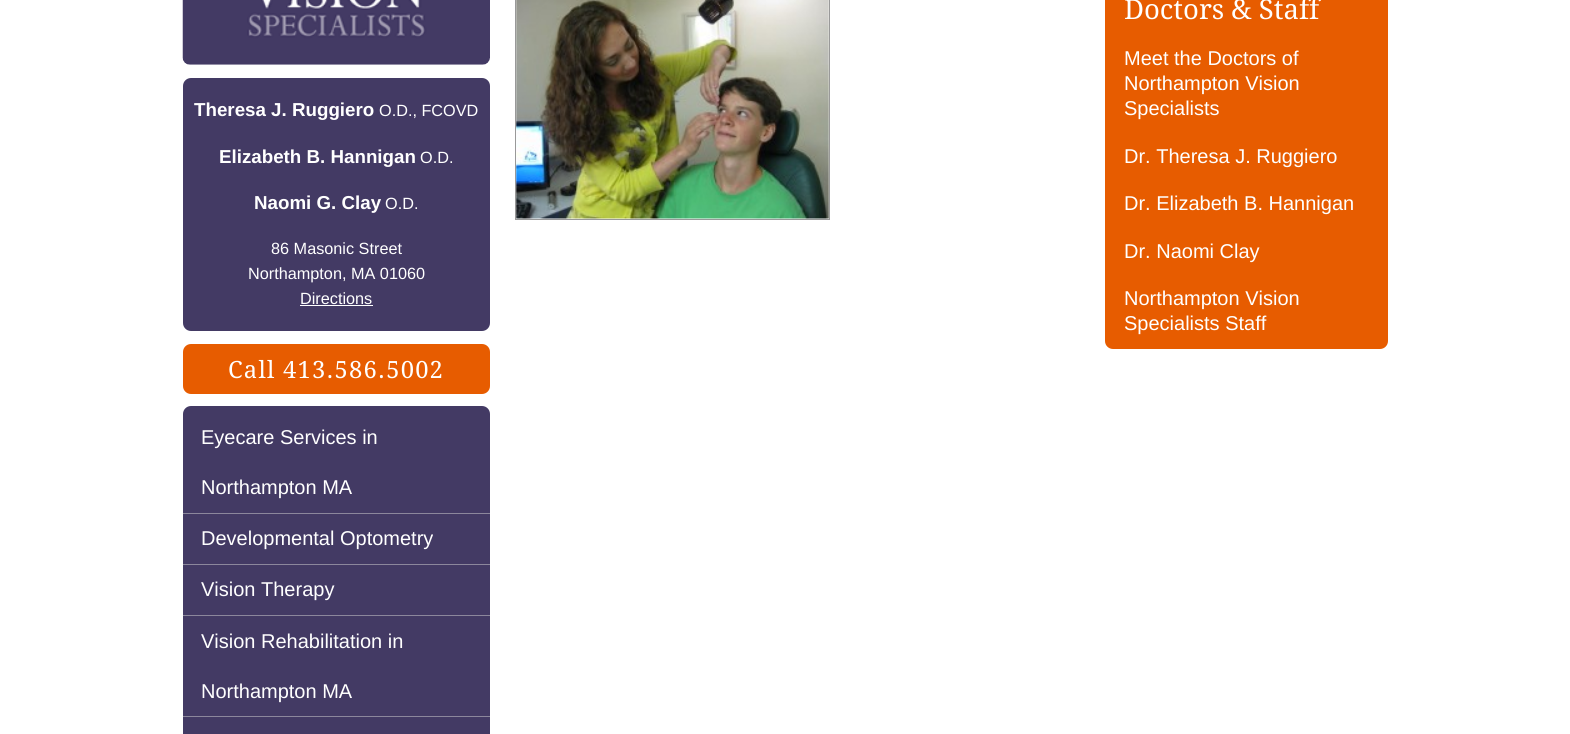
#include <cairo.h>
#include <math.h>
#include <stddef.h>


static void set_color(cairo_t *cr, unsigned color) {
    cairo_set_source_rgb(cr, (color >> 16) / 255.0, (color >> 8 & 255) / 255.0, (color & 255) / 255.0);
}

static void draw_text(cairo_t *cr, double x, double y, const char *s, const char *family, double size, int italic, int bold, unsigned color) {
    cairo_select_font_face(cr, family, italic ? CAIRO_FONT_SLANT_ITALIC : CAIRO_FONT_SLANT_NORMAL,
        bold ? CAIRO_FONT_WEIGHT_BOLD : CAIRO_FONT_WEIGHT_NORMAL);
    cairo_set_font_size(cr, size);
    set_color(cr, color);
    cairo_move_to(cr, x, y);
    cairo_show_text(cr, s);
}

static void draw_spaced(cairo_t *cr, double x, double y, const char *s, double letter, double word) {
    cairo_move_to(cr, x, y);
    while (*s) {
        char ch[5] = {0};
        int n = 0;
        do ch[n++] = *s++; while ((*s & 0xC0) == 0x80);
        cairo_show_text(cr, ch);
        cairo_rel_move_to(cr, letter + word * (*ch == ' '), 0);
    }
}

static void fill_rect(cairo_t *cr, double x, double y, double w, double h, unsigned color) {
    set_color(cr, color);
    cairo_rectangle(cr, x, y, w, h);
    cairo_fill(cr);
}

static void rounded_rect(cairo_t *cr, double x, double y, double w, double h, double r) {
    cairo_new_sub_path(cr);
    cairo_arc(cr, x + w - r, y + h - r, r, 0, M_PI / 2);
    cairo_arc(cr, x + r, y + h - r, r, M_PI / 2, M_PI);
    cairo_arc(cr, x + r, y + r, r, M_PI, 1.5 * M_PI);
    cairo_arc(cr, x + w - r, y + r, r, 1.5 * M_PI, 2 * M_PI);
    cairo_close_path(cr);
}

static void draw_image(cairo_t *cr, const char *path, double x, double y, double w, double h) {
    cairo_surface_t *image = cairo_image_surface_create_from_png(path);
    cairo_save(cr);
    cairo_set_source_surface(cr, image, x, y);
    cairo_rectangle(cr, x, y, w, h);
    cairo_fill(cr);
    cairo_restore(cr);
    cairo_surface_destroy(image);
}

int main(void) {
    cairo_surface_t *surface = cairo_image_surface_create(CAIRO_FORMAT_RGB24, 1570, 734);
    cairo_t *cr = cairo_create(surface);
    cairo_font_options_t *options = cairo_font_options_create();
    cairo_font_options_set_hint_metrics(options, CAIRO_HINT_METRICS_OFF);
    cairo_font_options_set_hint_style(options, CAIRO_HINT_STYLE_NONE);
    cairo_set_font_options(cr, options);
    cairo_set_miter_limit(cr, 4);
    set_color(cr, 0xFFFFFF);
    cairo_paint(cr);
    draw_image(cr, "assets/img1.png", 182, 0, 308, 65);
    set_color(cr, 0x433A64);
    rounded_rect(cr, 183, 78, 307, 253, 8);
    cairo_fill(cr);
    draw_text(cr, 194, 116, "Theresa J. Ruggiero", "Liberation Sans", 18.75, 0, 1, 0xFFFFFF);
    draw_text(cr, 379, 116, "O.D., FCOVD", "Liberation Sans", 16.25, 0, 0, 0xFFFFFF);
    draw_text(cr, 219, 163, "Elizabeth B. Hannigan", "Liberation Sans", 18.75, 0, 1, 0xFFFFFF);
    draw_text(cr, 420, 163, "O.D.", "Liberation Sans", 16.25, 0, 0, 0xFFFFFF);
    draw_text(cr, 254, 209, "Naomi G. Clay", "Liberation Sans", 18.75, 0, 1, 0xFFFFFF);
    draw_text(cr, 385, 209, "O.D.", "Liberation Sans", 16.25, 0, 0, 0xFFFFFF);
    draw_text(cr, 271, 254, "86 Masonic Street", "Liberation Sans", 16.25, 0, 0, 0xFFFFFF);
    draw_text(cr, 248, 279, "Northampton, MA 01060", "Liberation Sans", 16.25, 0, 0, 0xFFFFFF);
    draw_text(cr, 300, 304, "Directions", "Liberation Sans", 16.25, 0, 0, 0xFFFFFF);
    fill_rect(cr, 300, 305, 73, 1, 0xFFFFFF);
    set_color(cr, 0xE75C00);
    rounded_rect(cr, 183, 344, 307, 50, 8);
    cairo_fill(cr);
    cairo_select_font_face(cr, "Droid Serif", CAIRO_FONT_SLANT_NORMAL, CAIRO_FONT_WEIGHT_NORMAL);
    cairo_set_font_size(cr, 23.75);
    set_color(cr, 0xFFFFFF);
    draw_spaced(cr, 228, 378, "Call 413.586.5002", 1.25, 0);
    set_color(cr, 0x433A64);
    rounded_rect(cr, 183, 406, 307, 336, 8);
    cairo_fill(cr);
    fill_rect(cr, 183, 513, 307, 1, 0x8C879C);
    draw_text(cr, 201, 444, "Eyecare Services in", "Liberation Sans", 20, 0, 0, 0xFFFFFF);
    draw_text(cr, 201, 494, "Northampton MA", "Liberation Sans", 20, 0, 0, 0xFFFFFF);
    fill_rect(cr, 183, 564, 307, 1, 0x8C879C);
    draw_text(cr, 201, 545, "Developmental Optometry", "Liberation Sans", 20, 0, 0, 0xFFFFFF);
    fill_rect(cr, 183, 615, 307, 1, 0x8C879C);
    draw_text(cr, 201, 596, "Vision Therapy", "Liberation Sans", 20, 0, 0, 0xFFFFFF);
    fill_rect(cr, 183, 716, 307, 1, 0x8C879C);
    draw_text(cr, 201, 648, "Vision Rehabilitation in", "Liberation Sans", 20, 0, 0, 0xFFFFFF);
    draw_text(cr, 201, 698, "Northampton MA", "Liberation Sans", 20, 0, 0, 0xFFFFFF);
    cairo_rectangle(cr, 515.5, -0.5, 314, 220);
    set_color(cr, 0x999999);
    cairo_set_line_width(cr, 1);
    cairo_stroke(cr);
    draw_image(cr, "assets/img2.png", 516, 0, 313, 219);
    set_color(cr, 0xE75C00);
    rounded_rect(cr, 1105, -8, 283, 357, 8);
    cairo_fill(cr);
    draw_text(cr, 1124, 19, "Doctors & Staff", "Droid Serif", 27.5, 0, 0, 0xFFFFFF);
    draw_text(cr, 1124, 65, "Meet the Doctors of", "Liberation Sans", 20, 0, 0, 0xFFFFFF);
    draw_text(cr, 1124, 90, "Northampton Vision", "Liberation Sans", 20, 0, 0, 0xFFFFFF);
    draw_text(cr, 1124, 115, "Specialists", "Liberation Sans", 20, 0, 0, 0xFFFFFF);
    draw_text(cr, 1124, 163, "Dr. Theresa J. Ruggiero", "Liberation Sans", 20, 0, 0, 0xFFFFFF);
    draw_text(cr, 1124, 210, "Dr. Elizabeth B. Hannigan", "Liberation Sans", 20, 0, 0, 0xFFFFFF);
    draw_text(cr, 1124, 258, "Dr. Naomi Clay", "Liberation Sans", 20, 0, 0, 0xFFFFFF);
    draw_text(cr, 1124, 305, "Northampton Vision", "Liberation Sans", 20, 0, 0, 0xFFFFFF);
    draw_text(cr, 1124, 330, "Specialists Staff", "Liberation Sans", 20, 0, 0, 0xFFFFFF);
    cairo_surface_write_to_png(surface, "output.png");
    cairo_font_options_destroy(options);
    cairo_destroy(cr);
    cairo_surface_destroy(surface);
    return 0;
}
